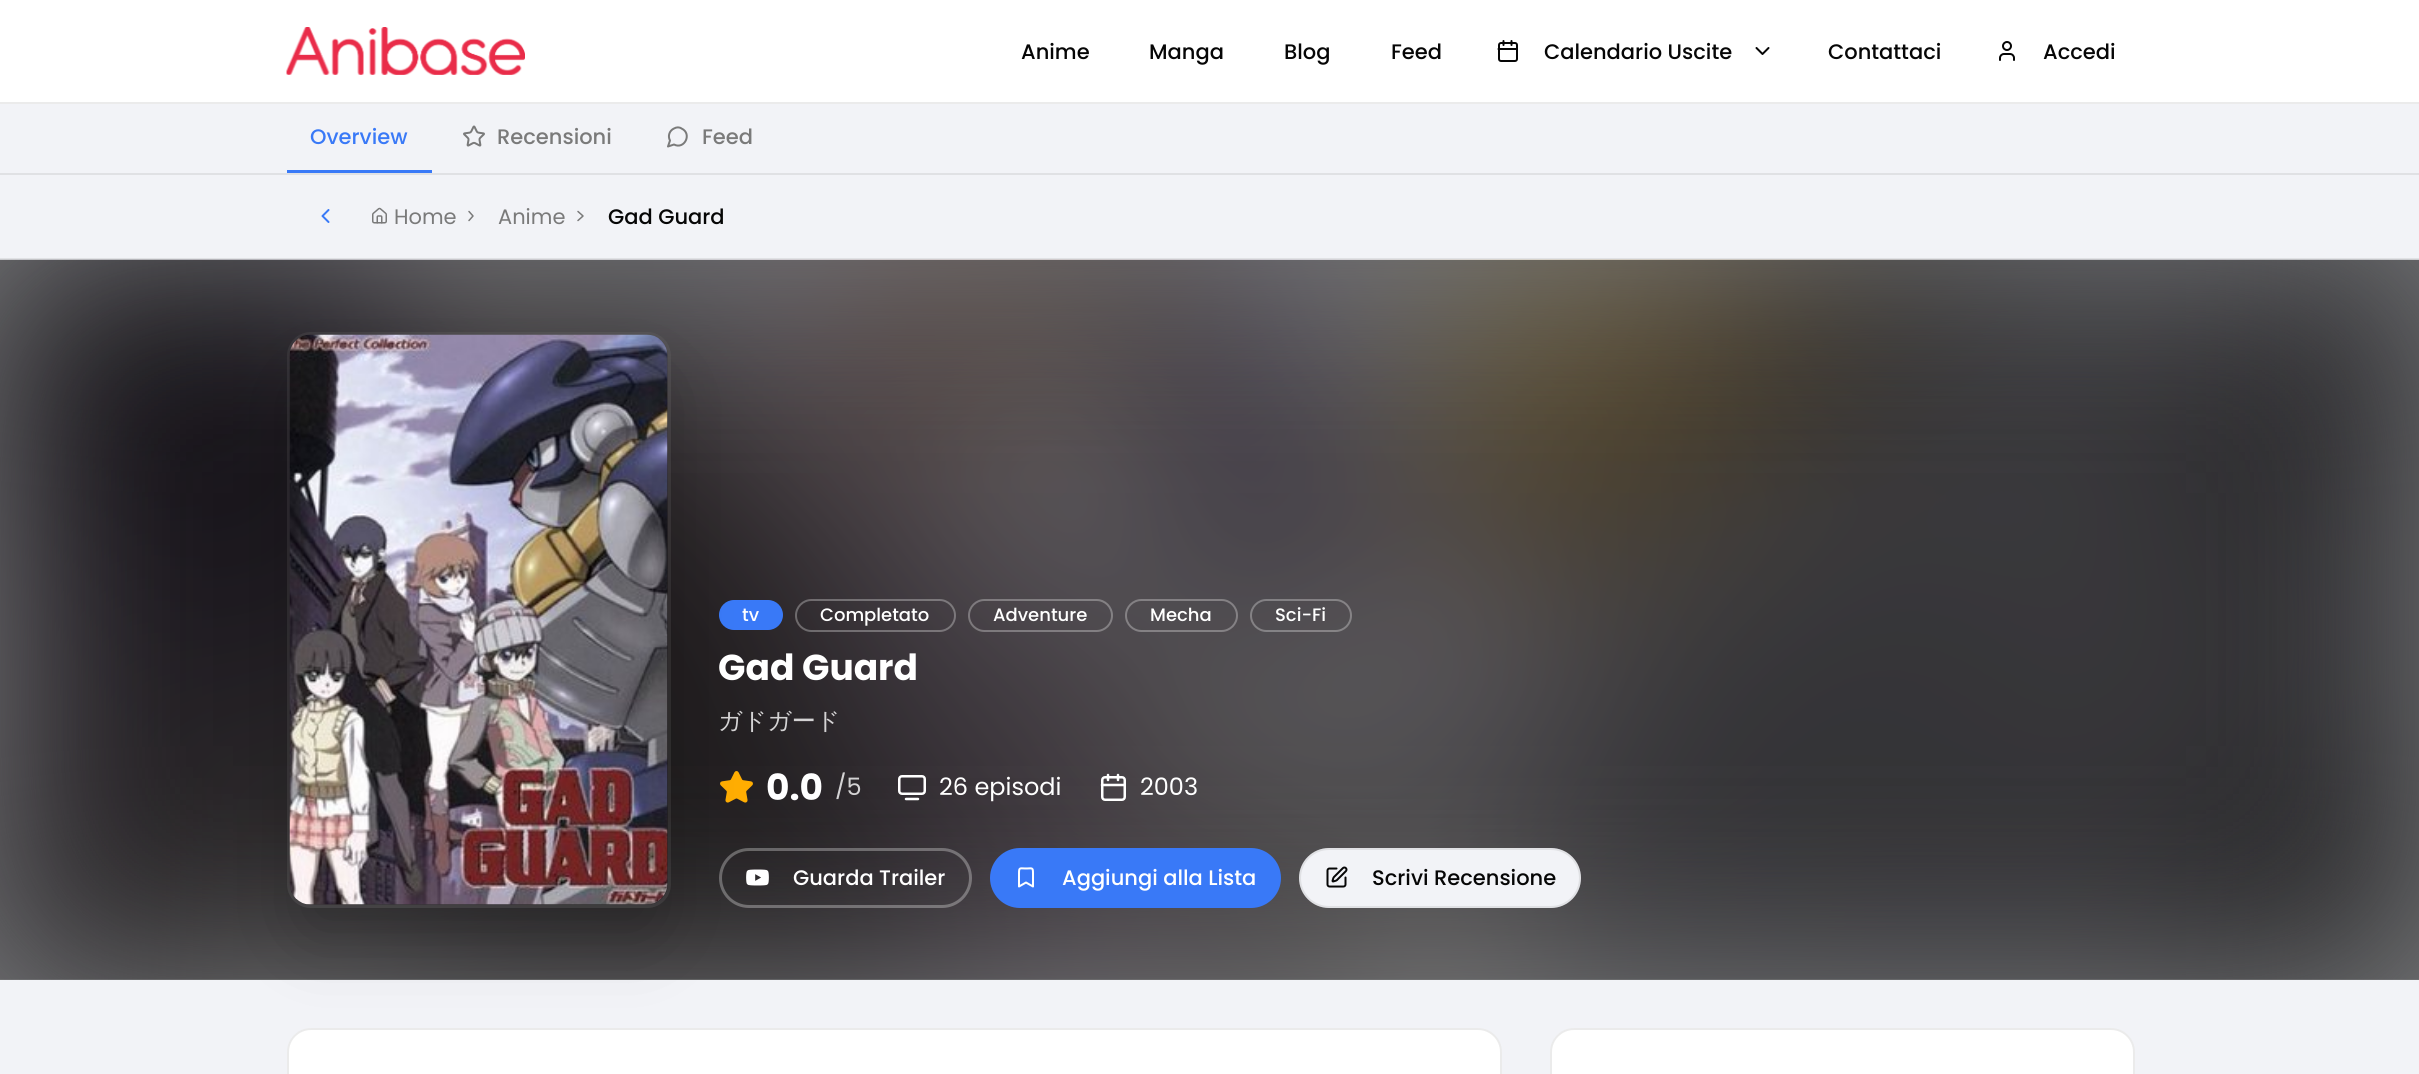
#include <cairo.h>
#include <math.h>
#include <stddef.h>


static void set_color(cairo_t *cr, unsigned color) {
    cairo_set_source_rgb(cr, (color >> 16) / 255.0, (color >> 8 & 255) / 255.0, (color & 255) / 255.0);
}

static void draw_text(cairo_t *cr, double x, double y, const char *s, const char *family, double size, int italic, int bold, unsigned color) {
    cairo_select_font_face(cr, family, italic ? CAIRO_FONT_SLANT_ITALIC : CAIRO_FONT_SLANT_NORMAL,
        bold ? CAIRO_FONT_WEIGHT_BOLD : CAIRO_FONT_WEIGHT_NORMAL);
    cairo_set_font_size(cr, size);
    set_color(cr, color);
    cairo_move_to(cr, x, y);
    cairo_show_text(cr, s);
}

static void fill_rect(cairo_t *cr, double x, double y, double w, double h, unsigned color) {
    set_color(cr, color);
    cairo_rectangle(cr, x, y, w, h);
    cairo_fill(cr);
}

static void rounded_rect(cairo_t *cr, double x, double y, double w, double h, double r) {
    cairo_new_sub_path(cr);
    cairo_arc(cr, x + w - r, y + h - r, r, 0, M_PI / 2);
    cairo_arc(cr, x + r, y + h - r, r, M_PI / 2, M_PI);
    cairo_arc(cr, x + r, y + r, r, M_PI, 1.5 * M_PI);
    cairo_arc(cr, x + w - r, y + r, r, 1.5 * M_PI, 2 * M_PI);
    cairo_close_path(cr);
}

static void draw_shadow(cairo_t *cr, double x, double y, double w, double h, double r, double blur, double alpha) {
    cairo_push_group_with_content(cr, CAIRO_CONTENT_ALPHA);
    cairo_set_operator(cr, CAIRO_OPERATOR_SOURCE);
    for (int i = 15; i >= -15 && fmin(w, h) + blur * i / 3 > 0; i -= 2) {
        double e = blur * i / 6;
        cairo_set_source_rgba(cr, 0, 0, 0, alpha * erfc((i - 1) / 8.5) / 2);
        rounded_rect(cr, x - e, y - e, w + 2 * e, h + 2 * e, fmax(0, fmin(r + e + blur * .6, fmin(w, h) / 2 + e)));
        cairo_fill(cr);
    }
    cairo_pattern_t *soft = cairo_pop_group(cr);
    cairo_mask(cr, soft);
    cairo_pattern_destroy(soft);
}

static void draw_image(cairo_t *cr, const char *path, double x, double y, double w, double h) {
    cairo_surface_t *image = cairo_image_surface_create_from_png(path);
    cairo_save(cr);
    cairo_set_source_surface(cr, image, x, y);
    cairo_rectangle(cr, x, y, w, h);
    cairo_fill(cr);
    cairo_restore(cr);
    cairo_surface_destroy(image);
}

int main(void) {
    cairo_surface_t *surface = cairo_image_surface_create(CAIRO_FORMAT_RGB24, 2419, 1074);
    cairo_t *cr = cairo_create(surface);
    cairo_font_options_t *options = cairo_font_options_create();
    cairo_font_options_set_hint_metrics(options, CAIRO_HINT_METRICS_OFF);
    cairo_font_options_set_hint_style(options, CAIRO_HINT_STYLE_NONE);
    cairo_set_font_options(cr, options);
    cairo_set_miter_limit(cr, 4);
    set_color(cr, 0xF2F3F7);
    cairo_paint(cr);
    fill_rect(cr, 0, 260, 2419, 720, 0x797A7C);
    fill_rect(cr, 0, 0, 2419, 102, 0xFFFFFF);
    fill_rect(cr, 0, 102, 2419, 2, 0xEBEBEB);
    draw_image(cr, "assets/img1.png", 286, 27, 239, 48);
    draw_text(cr, 1021, 59, "Anime", "Poppins Medium", 21, 0, 0, 0x060606);
    draw_text(cr, 1149, 59, "Manga", "Poppins Medium", 21, 0, 0, 0x060606);
    draw_text(cr, 1284, 59, "Blog", "Poppins Medium", 21, 0, 0, 0x060606);
    draw_text(cr, 1391, 59, "Feed", "Poppins Medium", 21, 0, 0, 0x060606);
    draw_image(cr, "assets/img2.png", 1497, 40, 21, 22);
    draw_text(cr, 1544, 59, "Calendario Uscite", "Poppins Medium", 21, 0, 0, 0x060606);
    cairo_new_path(cr);
    cairo_move_to(cr, 1756.5, 48);
    cairo_line_to(cr, 1762.5, 54);
    cairo_line_to(cr, 1768.5, 48);
    cairo_set_line_cap(cr, CAIRO_LINE_CAP_ROUND);
    cairo_set_line_join(cr, CAIRO_LINE_JOIN_ROUND);
    cairo_stroke(cr);
    draw_text(cr, 1828, 59, "Contattaci", "Poppins Medium", 21, 0, 0, 0x060606);
    draw_image(cr, "assets/img3.png", 1999, 41, 16, 20);
    draw_text(cr, 2043, 59, "Accedi", "Poppins Medium", 21, 0, 0, 0x060606);
    fill_rect(cr, 0, 173, 2419, 2, 0xE0E1E4);
    fill_rect(cr, 287, 170, 145, 3, 0x3979F7);
    draw_text(cr, 310, 144, "Overview", "Poppins Medium", 21, 0, 0, 0x3979F7);
    draw_image(cr, "assets/img4.png", 463, 125, 22, 22);
    draw_text(cr, 497, 144, "Recensioni", "Poppins Medium", 21, 0, 0, 0x7A7A7A);
    cairo_new_path(cr);
    cairo_move_to(cr, 674, 144.5);
    cairo_curve_to(cr, 684.5, 150, 692.5, 133.5, 681.5, 128.5);
    cairo_curve_to(cr, 679.5, 127, 676.5, 127, 674, 128.5);
    cairo_curve_to(cr, 669.5, 130.5, 667.5, 136, 670, 140.5);
    cairo_line_to(cr, 668, 146.5);
    cairo_close_path(cr);
    cairo_stroke(cr);
    draw_text(cr, 702, 144, "Feed", "Poppins Medium", 21, 0, 0, 0x7A7A7A);
    fill_rect(cr, 0, 258, 2419, 2, 0xE0E1E4);
    cairo_new_path(cr);
    cairo_move_to(cr, 328.5, 222);
    cairo_line_to(cr, 322.5, 216);
    cairo_line_to(cr, 328.5, 210);
    set_color(cr, 0x3979F7);
    cairo_stroke(cr);
    draw_image(cr, "assets/img5.png", 372, 207, 15, 17);
    draw_text(cr, 394, 224, "Home", "Poppins", 21, 0, 0, 0x7A7A7A);
    cairo_new_path(cr);
    cairo_move_to(cr, 469, 220.5);
    cairo_line_to(cr, 473, 216);
    cairo_line_to(cr, 469, 211.5);
    cairo_set_line_width(cr, 1.5);
    cairo_stroke(cr);
    draw_text(cr, 498, 224, "Anime", "Poppins", 21, 0, 0, 0x7A7A7A);
    cairo_new_path(cr);
    cairo_move_to(cr, 578, 220.5);
    cairo_line_to(cr, 583, 216);
    cairo_line_to(cr, 578, 211.5);
    cairo_stroke(cr);
    draw_text(cr, 608, 224, "Gad Guard", "Poppins Medium", 21, 0, 0, 0x060606);
    draw_image(cr, "assets/img6.png", 0, 259, 2419, 721);
    set_color(cr, 0x3979F7);
    rounded_rect(cr, 719, 600, 64, 30, 15);
    cairo_fill(cr);
    draw_image(cr, "assets/img8.png", 720, 771, 33, 32);
    rounded_rect(cr, 720.5, 849.5, 250, 57, 28.5);
    cairo_set_source_rgba(cr, 1, 1, 1, 0.3);
    cairo_set_line_width(cr, 3);
    cairo_set_line_cap(cr, CAIRO_LINE_CAP_BUTT);
    cairo_set_line_join(cr, CAIRO_LINE_JOIN_MITER);
    cairo_stroke(cr);
    draw_image(cr, "assets/img9.png", 746, 869, 23, 17);
    set_color(cr, 0xFFFFFF);
    rounded_rect(cr, 287, 1028, 1215, 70, 24);
    cairo_fill(cr);
    rounded_rect(cr, 288, 1029, 1213, 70, 23);
    cairo_set_source_rgba(cr, 0.478, 0.478, 0.478, 0.15);
    cairo_set_line_width(cr, 2);
    cairo_stroke(cr);
    cairo_save(cr);
    cairo_set_fill_rule(cr, CAIRO_FILL_RULE_EVEN_ODD);
    cairo_new_path(cr);
    cairo_move_to(cr, 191, 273);
    cairo_line_to(cr, 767, 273);
    cairo_line_to(cr, 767, 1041);
    cairo_line_to(cr, 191, 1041);
    cairo_close_path(cr);
    cairo_move_to(cr, 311, 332);
    cairo_line_to(cr, 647, 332);
    cairo_curve_to(cr, 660.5, 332, 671, 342.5, 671, 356);
    cairo_line_to(cr, 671, 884);
    cairo_curve_to(cr, 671, 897.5, 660.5, 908, 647, 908);
    cairo_line_to(cr, 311, 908);
    cairo_curve_to(cr, 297.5, 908, 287, 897.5, 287, 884);
    cairo_line_to(cr, 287, 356);
    cairo_curve_to(cr, 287, 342.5, 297.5, 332, 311, 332);
    cairo_close_path(cr);
    cairo_clip(cr);
    set_color(cr, 0x000000);
    draw_shadow(cr, 305, 387, 348, 540, 6, 37.5, 0.25);
    cairo_restore(cr);
    rounded_rect(cr, 288.5, 333.5, 381, 573, 22.5);
    cairo_set_line_width(cr, 3);
    cairo_stroke(cr);
    draw_image(cr, "assets/img7.png", 289, 334, 379, 571);
    draw_text(cr, 742, 621, "tv", "Poppins Medium", 18, 0, 0, 0xFFFFFF);
    rounded_rect(cr, 796, 600, 159, 31, 15.5);
    cairo_set_source_rgba(cr, 1, 1, 1, 0.3);
    cairo_set_line_width(cr, 2);
    cairo_stroke(cr);
    draw_text(cr, 820, 621, "Completato", "Poppins Medium", 18, 0, 0, 0xFFFFFF);
    rounded_rect(cr, 969, 600, 143, 31, 15.5);
    cairo_set_source_rgba(cr, 1, 1, 1, 0.3);
    cairo_stroke(cr);
    draw_text(cr, 993, 621, "Adventure", "Poppins Medium", 18, 0, 0, 0xFFFFFF);
    rounded_rect(cr, 1126, 600, 111, 31, 15.5);
    set_color(cr, 0x848184);
    cairo_stroke(cr);
    draw_text(cr, 1150, 621, "Mecha", "Poppins Medium", 18, 0, 0, 0xFFFFFF);
    rounded_rect(cr, 1251, 600, 100, 31, 15.5);
    cairo_set_source_rgba(cr, 1, 1, 1, 0.3);
    cairo_stroke(cr);
    draw_text(cr, 1275, 621, "Sci-Fi", "Poppins Medium", 18, 0, 0, 0xFFFFFF);
    draw_text(cr, 718, 680, "Gad Guard", "Poppins", 36, 0, 1, 0xFFFFFF);
    draw_text(cr, 718, 729, "ガドガード", "WenQuanYi Zen Hei Medium", 24, 0, 0, 0xD4D3D4);
    draw_text(cr, 766, 800, "0.0", "Poppins", 36, 0, 1, 0xFFFFFF);
    draw_text(cr, 835, 795, "/5", "Poppins", 24, 0, 0, 0xD4D3D4);
    cairo_new_path(cr);
    cairo_move_to(cr, 906, 799);
    cairo_line_to(cr, 918, 799);
    set_color(cr, 0xFFFFFF);
    cairo_set_line_width(cr, 2.5);
    cairo_set_line_cap(cr, CAIRO_LINE_CAP_ROUND);
    cairo_set_line_join(cr, CAIRO_LINE_JOIN_ROUND);
    cairo_stroke(cr);
    rounded_rect(cr, 899.25, 776.25, 25.5, 17.5, 2.75);
    cairo_set_line_cap(cr, CAIRO_LINE_CAP_BUTT);
    cairo_set_line_join(cr, CAIRO_LINE_JOIN_MITER);
    cairo_stroke(cr);
    draw_text(cr, 939, 795, "26 episodi", "Poppins", 24, 0, 0, 0xFFFFFF);
    cairo_new_path(cr);
    cairo_move_to(cr, 1108, 775);
    cairo_line_to(cr, 1108, 780);
    cairo_move_to(cr, 1118, 775);
    cairo_line_to(cr, 1118, 780);
    cairo_set_line_cap(cr, CAIRO_LINE_CAP_ROUND);
    cairo_set_line_join(cr, CAIRO_LINE_JOIN_ROUND);
    cairo_stroke(cr);
    rounded_rect(cr, 1102.25, 777.25, 22.5, 22.5, 2.75);
    cairo_set_line_cap(cr, CAIRO_LINE_CAP_BUTT);
    cairo_set_line_join(cr, CAIRO_LINE_JOIN_MITER);
    cairo_stroke(cr);
    cairo_new_path(cr);
    cairo_move_to(cr, 1102, 785);
    cairo_line_to(cr, 1124, 785);
    cairo_set_line_cap(cr, CAIRO_LINE_CAP_ROUND);
    cairo_set_line_join(cr, CAIRO_LINE_JOIN_ROUND);
    cairo_stroke(cr);
    draw_text(cr, 1140, 795, "2003", "Poppins", 24, 0, 0, 0xFFFFFF);
    draw_text(cr, 793, 885, "Guarda Trailer", "Poppins Medium", 21, 0, 0, 0xFFFFFF);
    set_color(cr, 0x3979F7);
    rounded_rect(cr, 990, 848, 291, 60, 30);
    cairo_fill(cr);
    cairo_new_path(cr);
    cairo_move_to(cr, 1033, 886.5);
    cairo_line_to(cr, 1026, 882.5);
    cairo_line_to(cr, 1019, 886.5);
    cairo_line_to(cr, 1019, 873);
    cairo_curve_to(cr, 1019, 867, 1020, 868.5, 1026, 868.5);
    cairo_curve_to(cr, 1032, 868.5, 1033, 867, 1033, 873);
    cairo_close_path(cr);
    set_color(cr, 0xFFFFFF);
    cairo_set_line_width(cr, 2);
    cairo_stroke(cr);
    draw_text(cr, 1062, 885, "Aggiungi alla Lista", "Poppins Medium", 21, 0, 0, 0xFFFFFF);
    set_color(cr, 0xF2F3F7);
    rounded_rect(cr, 1299, 848, 282, 60, 30);
    cairo_fill(cr);
    rounded_rect(cr, 1300, 849, 280, 58, 29);
    cairo_set_source_rgba(cr, 0.478, 0.478, 0.478, 0.15);
    cairo_set_line_cap(cr, CAIRO_LINE_CAP_BUTT);
    cairo_set_line_join(cr, CAIRO_LINE_JOIN_MITER);
    cairo_stroke(cr);
    draw_image(cr, "assets/img10.png", 1326, 866, 22, 22);
    draw_text(cr, 1372, 885, "Scrivi Recensione", "Poppins Medium", 21, 0, 0, 0x060606);
    set_color(cr, 0xFFFFFF);
    rounded_rect(cr, 1550, 1028, 585, 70, 24);
    cairo_fill(cr);
    rounded_rect(cr, 1551, 1029, 583, 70, 23);
    cairo_set_source_rgba(cr, 0.478, 0.478, 0.478, 0.15);
    cairo_stroke(cr);
    cairo_surface_write_to_png(surface, "output.png");
    cairo_font_options_destroy(options);
    cairo_destroy(cr);
    cairo_surface_destroy(surface);
    return 0;
}
